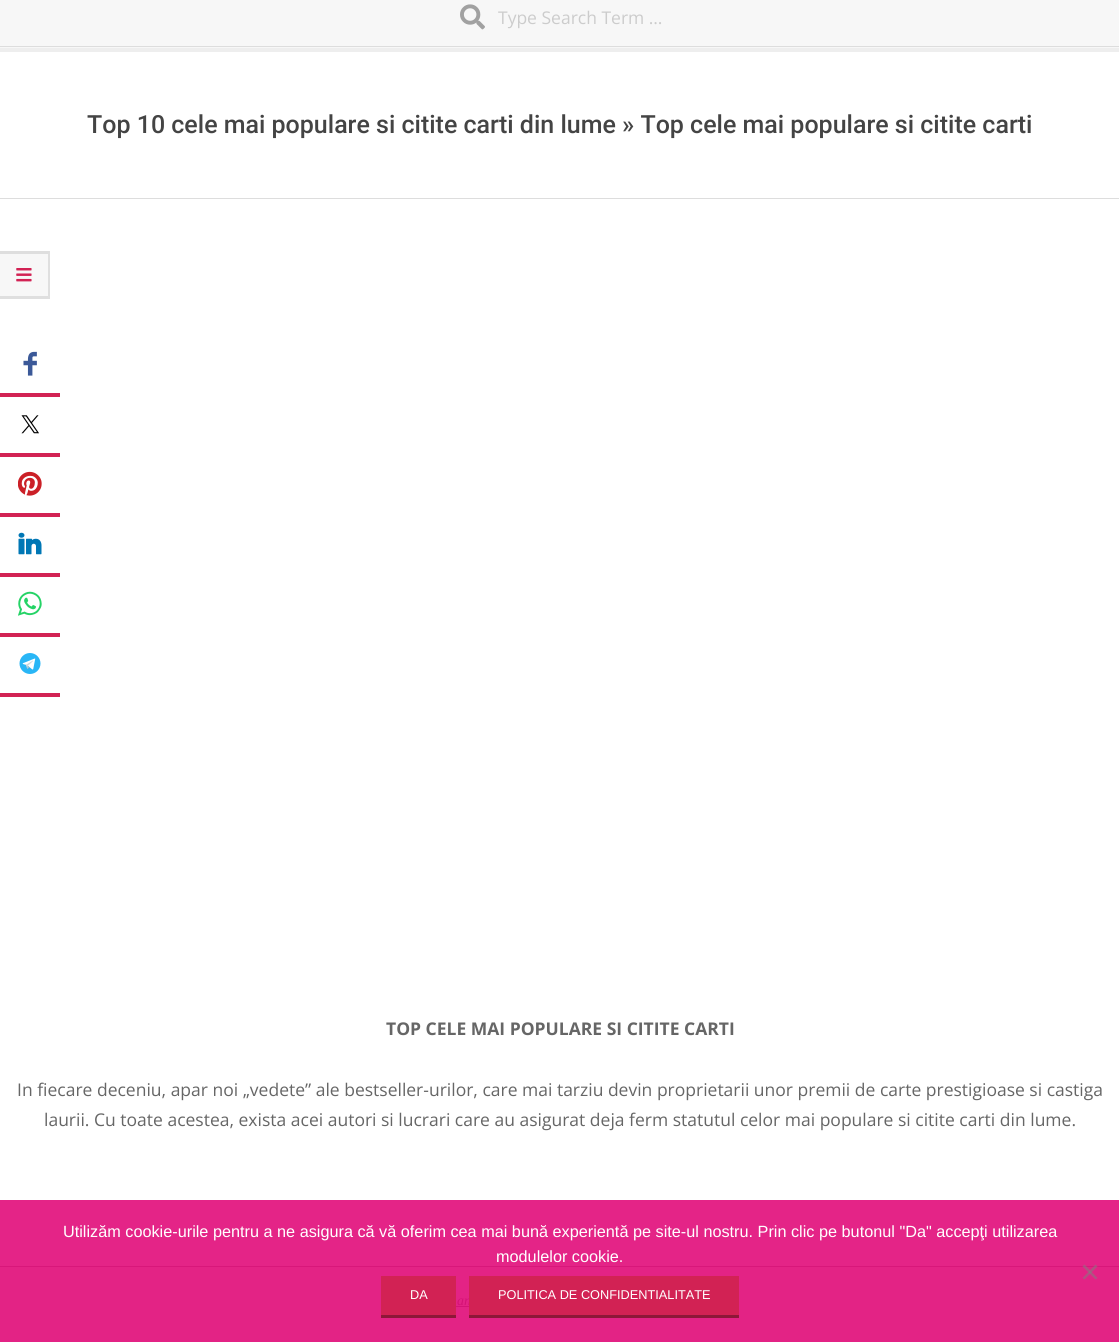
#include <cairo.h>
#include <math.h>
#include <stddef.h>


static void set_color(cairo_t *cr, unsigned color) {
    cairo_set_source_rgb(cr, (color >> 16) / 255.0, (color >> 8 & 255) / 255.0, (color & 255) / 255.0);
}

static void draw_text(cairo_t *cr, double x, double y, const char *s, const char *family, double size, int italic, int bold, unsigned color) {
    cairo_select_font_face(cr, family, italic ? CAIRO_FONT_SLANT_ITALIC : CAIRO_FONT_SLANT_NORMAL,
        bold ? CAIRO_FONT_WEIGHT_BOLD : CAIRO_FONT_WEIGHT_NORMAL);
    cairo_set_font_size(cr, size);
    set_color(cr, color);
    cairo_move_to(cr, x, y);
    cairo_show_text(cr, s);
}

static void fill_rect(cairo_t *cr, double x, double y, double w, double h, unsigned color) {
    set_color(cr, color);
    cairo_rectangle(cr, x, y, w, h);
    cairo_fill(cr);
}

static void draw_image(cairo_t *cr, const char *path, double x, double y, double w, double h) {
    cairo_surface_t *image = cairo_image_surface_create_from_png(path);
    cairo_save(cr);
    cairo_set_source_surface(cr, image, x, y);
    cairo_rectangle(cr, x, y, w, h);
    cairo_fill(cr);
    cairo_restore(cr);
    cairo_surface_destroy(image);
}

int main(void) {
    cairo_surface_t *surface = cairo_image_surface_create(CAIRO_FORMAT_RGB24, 1119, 1342);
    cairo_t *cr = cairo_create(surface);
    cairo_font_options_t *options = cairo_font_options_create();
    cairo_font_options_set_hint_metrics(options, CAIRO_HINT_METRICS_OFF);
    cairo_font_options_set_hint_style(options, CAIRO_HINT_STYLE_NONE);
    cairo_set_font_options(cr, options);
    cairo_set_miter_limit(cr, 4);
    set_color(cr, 0xF7F7F7);
    cairo_paint(cr);
    fill_rect(cr, 0, 1267, 1119, 75, 0xE32385);
    fill_rect(cr, 0, 46, 1119, 1, 0xDDDDDD);
    draw_image(cr, "assets/img1.png", 460, 4, 25, 26);
    draw_text(cr, 498, 24, "Type Search Term …", "Open Sans", 17.5, 0, 0, 0xCCCCCC);
    fill_rect(cr, 0, 48, 1119, 4, 0xEEEEEE);
    fill_rect(cr, 0, 52, 1119, 1148, 0xFFFFFF);
    fill_rect(cr, 0, 251, 50, 48, 0xF7F7F7);
    set_color(cr, 0xDEDEDE);
    cairo_new_path(cr);
    cairo_move_to(cr, 0, 251);
    cairo_line_to(cr, 50, 251);
    cairo_line_to(cr, 48, 254);
    cairo_line_to(cr, 0, 254);
    cairo_close_path(cr);
    cairo_fill(cr);
    cairo_set_source_rgba(cr, 0, 0, 0, 0.1);
    cairo_new_path(cr);
    cairo_move_to(cr, 50, 251);
    cairo_line_to(cr, 50, 299);
    cairo_line_to(cr, 48, 296);
    cairo_line_to(cr, 48, 254);
    cairo_close_path(cr);
    cairo_fill(cr);
    cairo_new_path(cr);
    cairo_move_to(cr, 50, 299);
    cairo_line_to(cr, 0, 299);
    cairo_line_to(cr, 0, 296);
    cairo_line_to(cr, 48, 296);
    cairo_close_path(cr);
    cairo_fill(cr);
    draw_image(cr, "assets/img2.png", 16, 268, 16, 14);
    fill_rect(cr, 0, 1200, 1119, 66, 0xE42487);
    fill_rect(cr, 0, 198, 1119, 1, 0xDDDDDD);
    draw_text(cr, 87, 133, "Top 10 cele mai populare si citite carti din lume » Top cele mai populare si citite carti", "Roboto Medium", 25, 0, 0, 0x444444);
    draw_text(cr, 386, 1035, "TOP CELE MAI POPULARE SI CITITE CARTI", "Open Sans", 17.5, 0, 1, 0x666666);
    draw_text(cr, 17, 1096, "In fiecare deceniu, apar noi „vedete” ale bestseller-urilor, care mai tarziu devin proprietarii unor premii de carte prestigioase si castiga", "Open Sans", 17.5, 0, 0, 0x666666);
    draw_text(cr, 44, 1126, "laurii. Cu toate acestea, exista acei autori si lucrari care au asigurat deja ferm statutul celor mai populare si citite carti din lume.", "Open Sans", 17.5, 0, 0, 0x666666);
    fill_rect(cr, 0, 1266, 1119, 1, 0xD8177A);
    draw_text(cr, 457, 1305, "an", "Liberation Serif", 14, 1, 0, 0xD41376);
    fill_rect(cr, 456, 1306, 13, 1, 0xD41376);
    fill_rect(cr, 0, 393, 60, 4, 0xD22254);
    draw_image(cr, "assets/img3.png", 23, 351, 14, 25);
    fill_rect(cr, 0, 453, 60, 4, 0xD22254);
    draw_image(cr, "assets/img4.png", 21, 415, 18, 19);
    fill_rect(cr, 0, 513, 60, 4, 0xD22254);
    draw_image(cr, "assets/img5.png", 18, 471, 24, 25);
    fill_rect(cr, 0, 573, 60, 4, 0xD22254);
    draw_image(cr, "assets/img6.png", 18, 532, 24, 23);
    fill_rect(cr, 0, 633, 60, 4, 0xD22254);
    draw_image(cr, "assets/img7.png", 18, 591, 24, 25);
    fill_rect(cr, 0, 693, 60, 4, 0xD22254);
    draw_image(cr, "assets/img8.png", 19, 653, 22, 21);
    draw_text(cr, 63, 1237, "Utilizăm cookie-urile pentru a ne asigura că vă oferim cea mai bună experientă pe site-ul nostru. Prin clic pe butonul \"Da\" accepţi utilizarea", "Liberation Sans", 16.25, 0, 0, 0xFFFFFF);
    draw_text(cr, 496, 1262, "modulelor cookie.", "Liberation Sans", 16.25, 0, 0, 0xFFFFFF);
    cairo_set_source_rgba(cr, 0.502, 0.502, 0.502, 0.5);
    cairo_new_path(cr);
    cairo_move_to(cr, 1095.5, 1264.5);
    cairo_line_to(cr, 1097.5, 1266.5);
    cairo_line_to(cr, 1084.5, 1279.5);
    cairo_line_to(cr, 1082.5, 1278);
    cairo_close_path(cr);
    cairo_fill(cr);
    cairo_new_path(cr);
    cairo_move_to(cr, 1082.5, 1266.5);
    cairo_line_to(cr, 1084.5, 1264.5);
    cairo_line_to(cr, 1097.5, 1278);
    cairo_line_to(cr, 1095.5, 1279.5);
    cairo_close_path(cr);
    cairo_fill(cr);
    fill_rect(cr, 381, 1276, 75, 39, 0xD22254);
    fill_rect(cr, 381, 1315, 75, 3, 0x8D1738);
    draw_text(cr, 410, 1299, "DA", "Liberation Sans", 12.75, 0, 0, 0xFFFFFF);
    fill_rect(cr, 469, 1276, 270, 39, 0xD22254);
    fill_rect(cr, 469, 1315, 270, 3, 0x8D1738);
    draw_text(cr, 498, 1299, "POLITICA DE CONFIDENTIALITATE", "Liberation Sans", 12.75, 0, 0, 0xFFFFFF);
    cairo_surface_write_to_png(surface, "output.png");
    cairo_font_options_destroy(options);
    cairo_destroy(cr);
    cairo_surface_destroy(surface);
    return 0;
}
